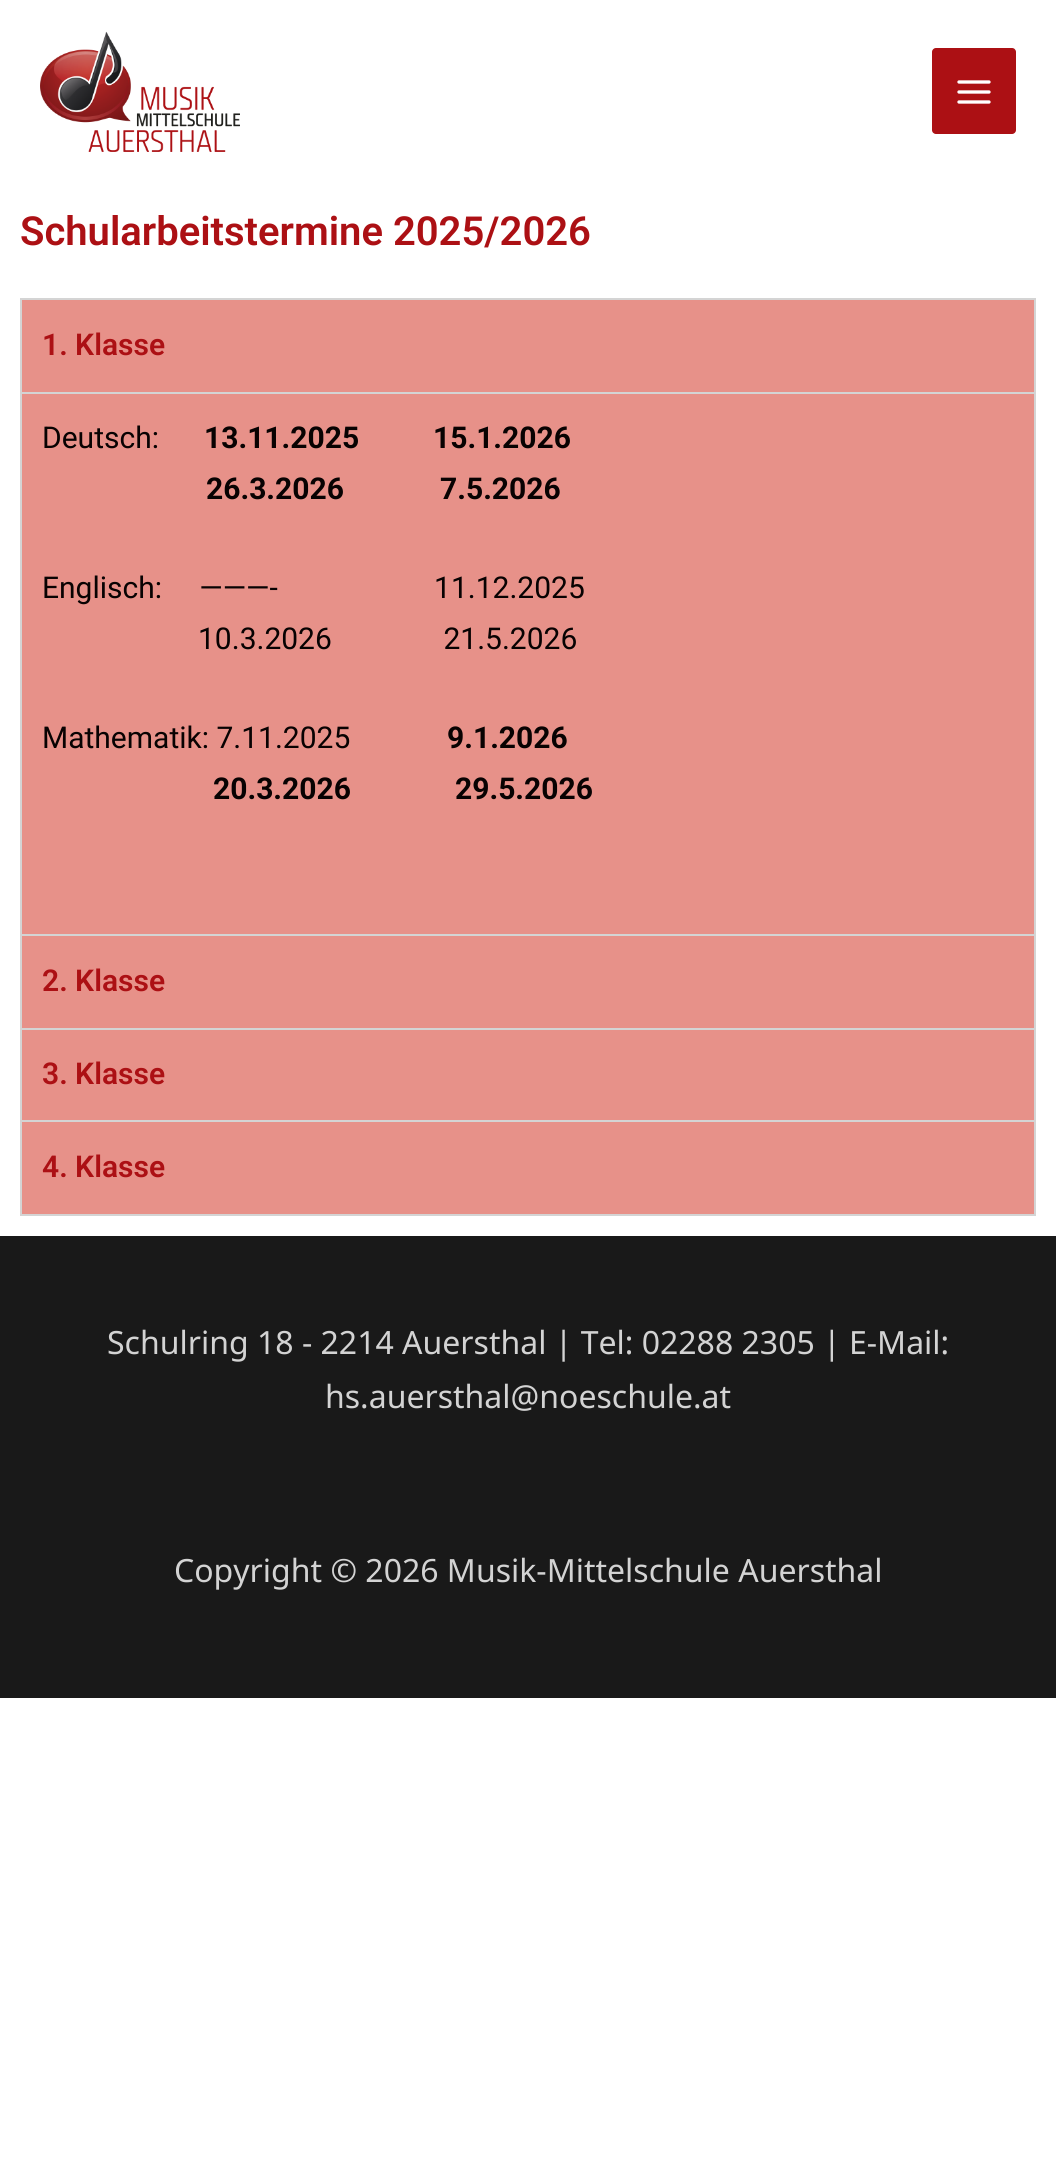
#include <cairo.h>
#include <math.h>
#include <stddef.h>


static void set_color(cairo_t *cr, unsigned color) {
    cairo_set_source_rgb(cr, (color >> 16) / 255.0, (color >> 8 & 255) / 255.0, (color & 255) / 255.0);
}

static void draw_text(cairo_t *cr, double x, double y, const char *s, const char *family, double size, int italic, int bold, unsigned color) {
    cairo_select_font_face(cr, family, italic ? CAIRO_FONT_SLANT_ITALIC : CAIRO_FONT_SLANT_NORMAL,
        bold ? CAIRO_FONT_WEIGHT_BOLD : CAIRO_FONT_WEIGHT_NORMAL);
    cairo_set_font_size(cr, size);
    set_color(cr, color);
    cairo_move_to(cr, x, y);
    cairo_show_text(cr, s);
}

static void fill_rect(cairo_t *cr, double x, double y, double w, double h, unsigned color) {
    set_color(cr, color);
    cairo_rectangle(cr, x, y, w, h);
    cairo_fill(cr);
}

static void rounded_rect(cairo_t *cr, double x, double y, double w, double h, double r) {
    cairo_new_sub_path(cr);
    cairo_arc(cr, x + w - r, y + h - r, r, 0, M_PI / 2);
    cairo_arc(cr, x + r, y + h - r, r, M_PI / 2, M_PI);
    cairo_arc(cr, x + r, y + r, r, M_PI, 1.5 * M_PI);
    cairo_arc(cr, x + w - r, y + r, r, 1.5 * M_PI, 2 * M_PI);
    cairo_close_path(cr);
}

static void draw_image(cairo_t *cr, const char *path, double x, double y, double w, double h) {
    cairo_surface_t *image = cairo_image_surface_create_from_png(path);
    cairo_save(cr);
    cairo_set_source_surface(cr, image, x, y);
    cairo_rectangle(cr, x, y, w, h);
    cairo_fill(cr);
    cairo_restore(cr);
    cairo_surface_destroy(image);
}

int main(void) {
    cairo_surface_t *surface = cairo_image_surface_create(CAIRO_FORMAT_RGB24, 1056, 2182);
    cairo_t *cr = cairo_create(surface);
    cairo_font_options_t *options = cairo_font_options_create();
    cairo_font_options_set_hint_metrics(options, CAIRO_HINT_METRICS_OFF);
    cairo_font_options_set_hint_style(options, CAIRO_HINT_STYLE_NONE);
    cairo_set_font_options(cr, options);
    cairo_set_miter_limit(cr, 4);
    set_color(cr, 0xFFFFFF);
    cairo_paint(cr);
    draw_image(cr, "assets/img1.png", 40, 31, 200, 121);
    set_color(cr, 0xAC1014);
    rounded_rect(cr, 932, 48, 84, 86, 4);
    cairo_fill(cr);
    draw_image(cr, "assets/img2.png", 957, 80, 34, 24);
    draw_text(cr, 20, 245, "Schularbeitstermine 2025/2026", "Roboto SemiBold", 40, 0, 0, 0xAC1014);
    fill_rect(cr, 22, 300, 1012, 914, 0xE79189);
    fill_rect(cr, 20, 1214, 1016, 2, 0xD4D4D4);
    fill_rect(cr, 20, 298, 1016, 2, 0xD4D4D4);
    fill_rect(cr, 1034, 298, 2, 94, 0xD4D4D4);
    fill_rect(cr, 20, 298, 2, 94, 0xD4D4D4);
    draw_text(cr, 42, 355, "1. Klasse", "Roboto SemiBold", 30, 0, 0, 0xAC1014);
    fill_rect(cr, 20, 392, 1016, 2, 0xD4D4D4);
    fill_rect(cr, 1034, 392, 2, 542, 0xD4D4D4);
    fill_rect(cr, 20, 392, 2, 542, 0xD4D4D4);
    draw_text(cr, 42, 448, "Deutsch:", "Roboto", 30, 0, 0, 0x080202);
    draw_text(cr, 204, 448, "13.11.2025", "Roboto", 30, 0, 1, 0x080202);
    draw_text(cr, 433, 448, "15.1.2026", "Roboto", 30, 0, 1, 0x080202);
    draw_text(cr, 206, 499, "26.3.2026", "Roboto", 30, 0, 1, 0x080202);
    draw_text(cr, 440, 499, "7.5.2026", "Roboto", 30, 0, 1, 0x080202);
    draw_text(cr, 42, 598, "Englisch:     ———-                     11.12.2025", "Roboto", 30, 0, 0, 0x080202);
    draw_text(cr, 198, 649, "10.3.2026               21.5.2026", "Roboto", 30, 0, 0, 0x080202);
    draw_text(cr, 42, 748, "Mathematik: 7.11.2025", "Roboto", 30, 0, 0, 0x080202);
    draw_text(cr, 447, 748, "9.1.2026", "Roboto", 30, 0, 1, 0x080202);
    draw_text(cr, 213, 799, "20.3.2026", "Roboto", 30, 0, 1, 0x080202);
    draw_text(cr, 455, 799, "29.5.2026", "Roboto", 30, 0, 1, 0x080202);
    fill_rect(cr, 20, 934, 1016, 2, 0xD4D4D4);
    fill_rect(cr, 1034, 934, 2, 94, 0xD4D4D4);
    fill_rect(cr, 20, 934, 2, 94, 0xD4D4D4);
    draw_text(cr, 42, 991, "2. Klasse", "Roboto SemiBold", 30, 0, 0, 0xAC1014);
    fill_rect(cr, 20, 1028, 1016, 2, 0xD4D4D4);
    fill_rect(cr, 1034, 1028, 2, 92, 0xD4D4D4);
    fill_rect(cr, 20, 1028, 2, 92, 0xD4D4D4);
    draw_text(cr, 42, 1084, "3. Klasse", "Roboto SemiBold", 30, 0, 0, 0xAC1014);
    fill_rect(cr, 20, 1120, 1016, 2, 0xD4D4D4);
    fill_rect(cr, 1034, 1120, 2, 94, 0xD4D4D4);
    fill_rect(cr, 20, 1120, 2, 94, 0xD4D4D4);
    draw_text(cr, 42, 1177, "4. Klasse", "Roboto SemiBold", 30, 0, 0, 0xAC1014);
    fill_rect(cr, 0, 1236, 1056, 462, 0x191919);
    draw_text(cr, 107, 1354, "Schulring 18 - 2214 Auersthal | Tel: 02288 2305 | E-Mail:", "Noto Sans", 32, 0, 0, 0xD3D3D3);
    draw_text(cr, 325, 1408, "hs.auersthal@noeschule.at", "Noto Sans", 32, 0, 0, 0xD3D3D3);
    draw_text(cr, 174, 1582, "Copyright © 2026 Musik-Mittelschule Auersthal", "Noto Sans", 32, 0, 0, 0xD3D3D3);
    cairo_surface_write_to_png(surface, "output.png");
    cairo_font_options_destroy(options);
    cairo_destroy(cr);
    cairo_surface_destroy(surface);
    return 0;
}
